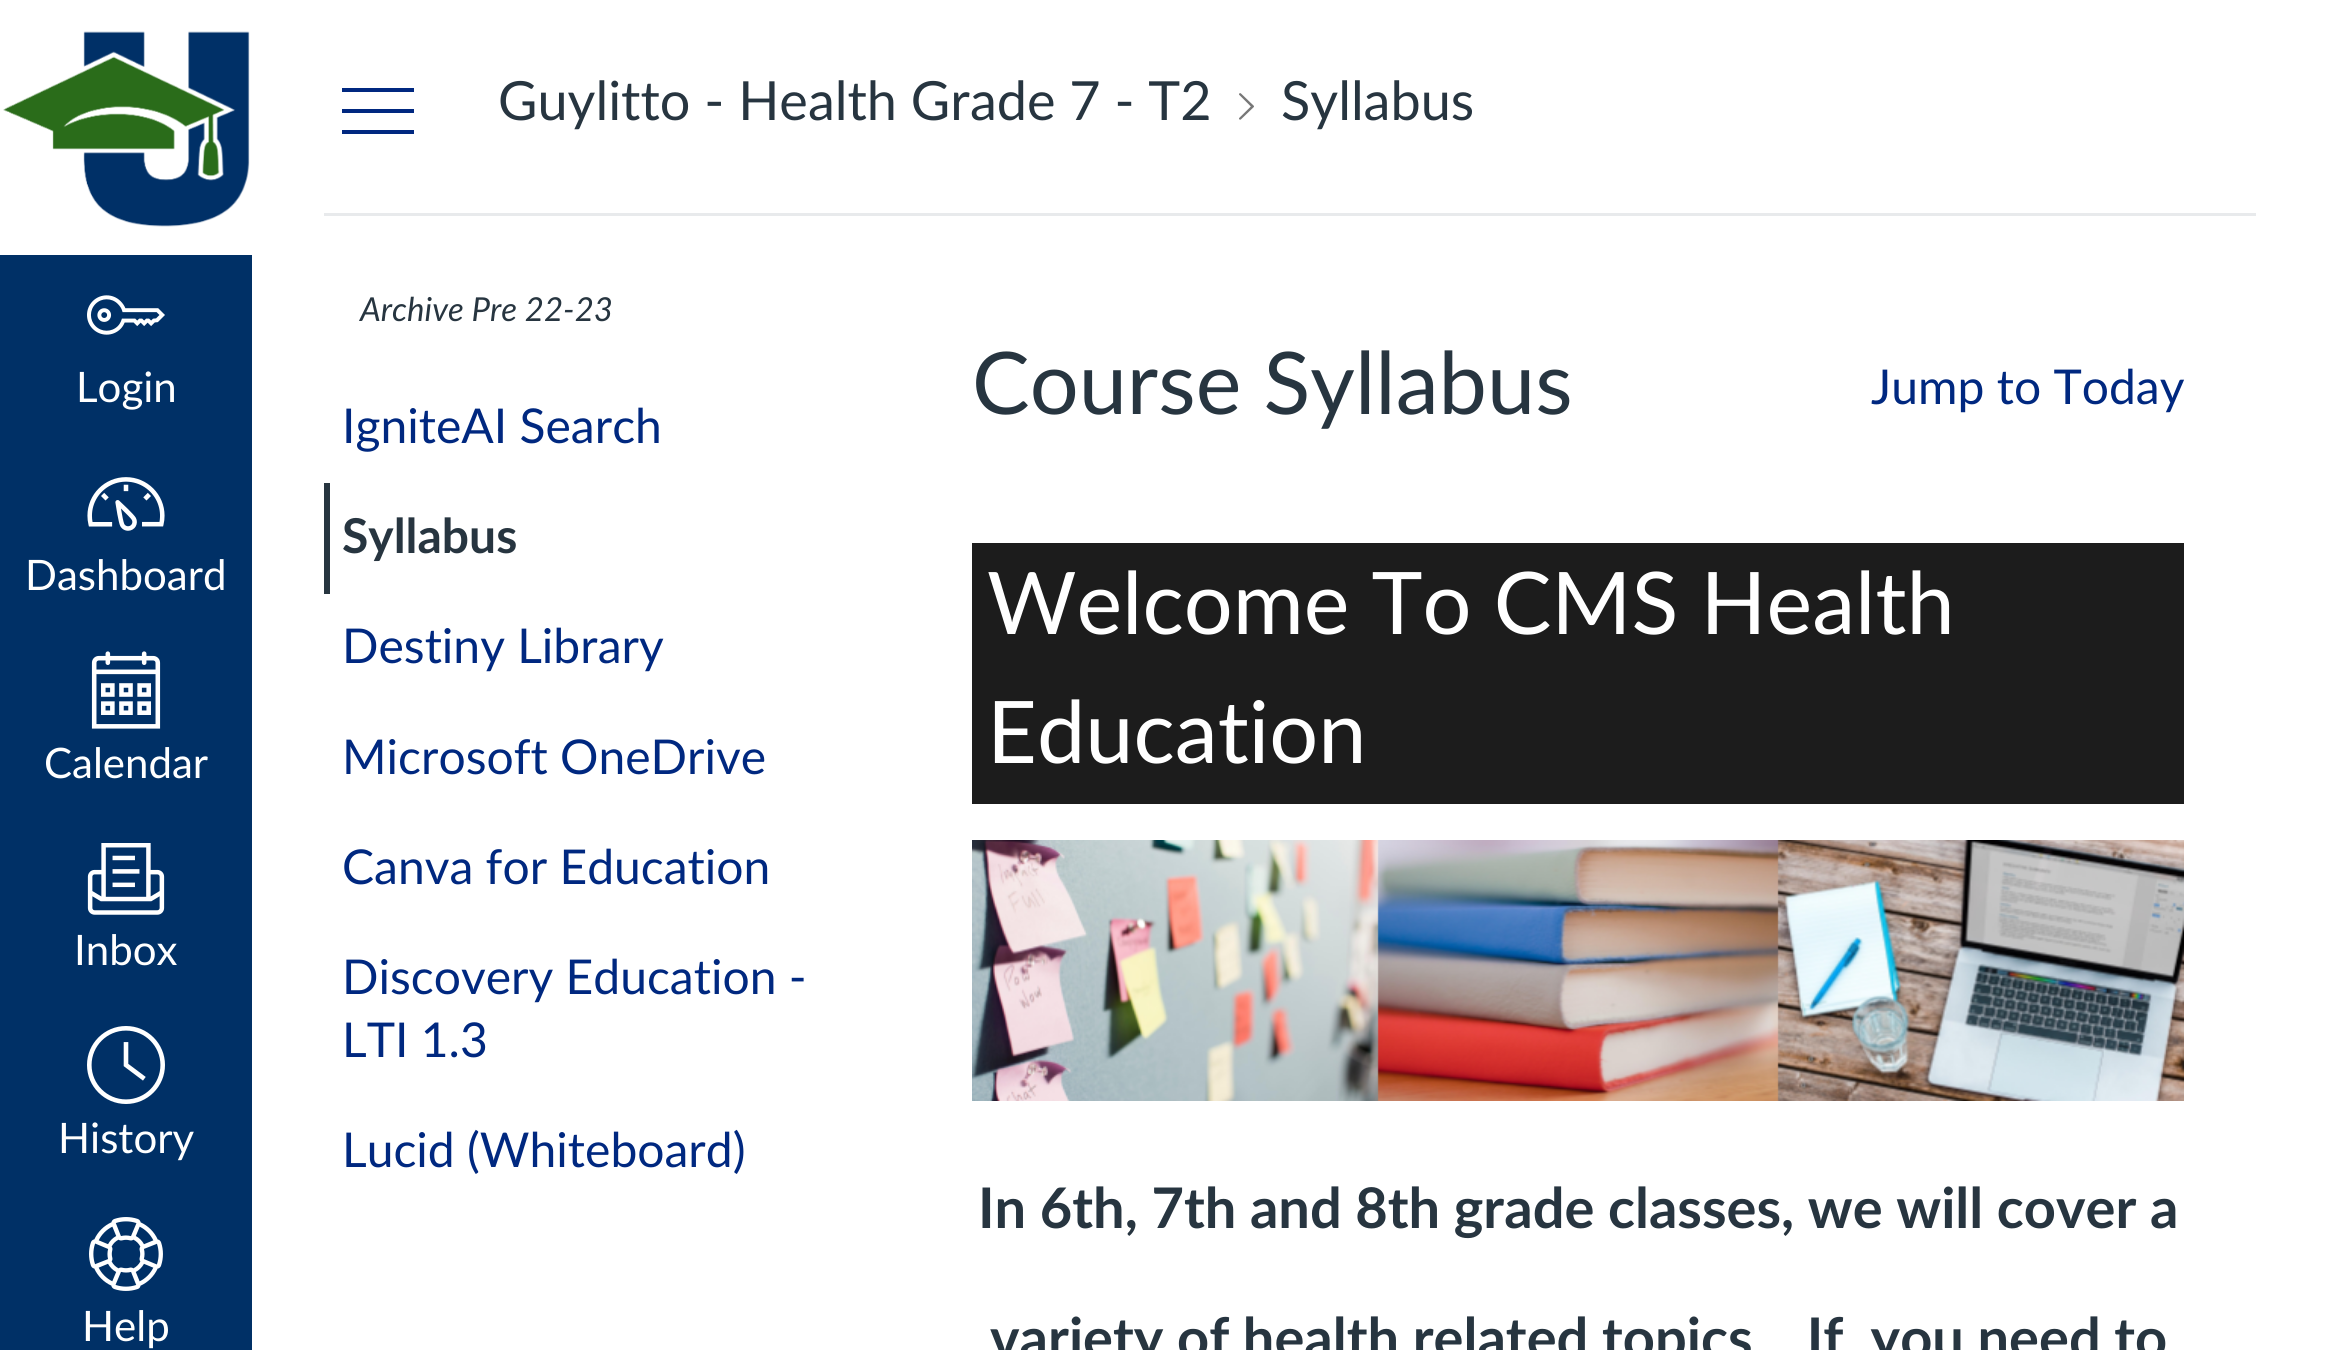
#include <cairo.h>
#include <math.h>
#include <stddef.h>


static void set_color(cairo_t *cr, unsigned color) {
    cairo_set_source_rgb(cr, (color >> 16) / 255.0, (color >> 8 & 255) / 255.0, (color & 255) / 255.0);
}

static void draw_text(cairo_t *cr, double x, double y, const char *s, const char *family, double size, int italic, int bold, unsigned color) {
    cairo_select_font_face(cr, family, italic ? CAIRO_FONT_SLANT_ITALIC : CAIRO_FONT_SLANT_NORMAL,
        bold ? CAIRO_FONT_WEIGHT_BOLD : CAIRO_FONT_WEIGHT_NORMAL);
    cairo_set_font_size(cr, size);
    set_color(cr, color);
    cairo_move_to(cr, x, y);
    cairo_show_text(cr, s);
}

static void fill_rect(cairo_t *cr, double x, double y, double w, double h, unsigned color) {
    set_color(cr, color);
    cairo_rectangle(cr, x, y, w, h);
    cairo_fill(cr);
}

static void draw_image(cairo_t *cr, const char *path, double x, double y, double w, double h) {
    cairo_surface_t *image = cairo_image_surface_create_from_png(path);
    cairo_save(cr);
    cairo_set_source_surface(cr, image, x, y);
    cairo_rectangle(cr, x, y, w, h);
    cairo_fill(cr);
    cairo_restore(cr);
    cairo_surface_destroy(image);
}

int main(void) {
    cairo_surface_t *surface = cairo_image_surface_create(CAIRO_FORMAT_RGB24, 2328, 1350);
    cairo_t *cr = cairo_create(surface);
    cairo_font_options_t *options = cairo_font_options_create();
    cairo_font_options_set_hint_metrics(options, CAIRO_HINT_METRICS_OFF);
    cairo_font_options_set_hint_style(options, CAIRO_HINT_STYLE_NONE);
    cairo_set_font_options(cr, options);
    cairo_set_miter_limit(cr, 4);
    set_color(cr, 0xFFFFFF);
    cairo_paint(cr);
    fill_rect(cr, 0, 255, 252, 1095, 0x003066);
    draw_image(cr, "assets/img1.png", 3, 31, 247, 196);
    draw_image(cr, "assets/img2.png", 87, 295, 78, 40);
    draw_text(cr, 76, 402, "Login", "Lato", 42, 0, 0, 0xFFFFFF);
    draw_image(cr, "assets/img3.png", 87, 477, 78, 54);
    draw_text(cr, 25, 590, "Dashboard", "Lato", 42, 0, 0, 0xFFFFFF);
    draw_image(cr, "assets/img4.png", 91, 651, 70, 78);
    draw_text(cr, 44, 778, "Calendar", "Lato", 42, 0, 0, 0xFFFFFF);
    draw_image(cr, "assets/img5.png", 87, 843, 78, 72);
    draw_text(cr, 74, 965, "Inbox", "Lato", 42, 0, 0, 0xFFFFFF);
    draw_image(cr, "assets/img6.png", 87, 1026, 78, 78);
    draw_text(cr, 58, 1153, "History", "Lato", 42, 0, 0, 0xFFFFFF);
    draw_image(cr, "assets/img7.png", 89, 1217, 74, 74);
    draw_text(cr, 82, 1341, "Help", "Lato", 42, 0, 0, 0xFFFFFF);
    fill_rect(cr, 324, 213, 1932, 3, 0xE8EAEC);
    set_color(cr, 0x002880);
    cairo_new_path(cr);
    cairo_move_to(cr, 414, 130);
    cairo_line_to(cr, 414, 134);
    cairo_line_to(cr, 342, 134);
    cairo_line_to(cr, 342, 130);
    cairo_close_path(cr);
    cairo_move_to(cr, 414, 109);
    cairo_line_to(cr, 414, 113);
    cairo_line_to(cr, 342, 113);
    cairo_line_to(cr, 342, 109);
    cairo_close_path(cr);
    cairo_move_to(cr, 414, 88);
    cairo_line_to(cr, 414, 92);
    cairo_line_to(cr, 342, 92);
    cairo_line_to(cr, 342, 88);
    cairo_close_path(cr);
    cairo_fill(cr);
    draw_text(cr, 498, 120, "Guylitto - Health Grade 7 - T2", "Lato", 54, 0, 0, 0x273540);
    draw_image(cr, "assets/img8.png", 1239, 93, 15, 27);
    draw_text(cr, 1281, 120, "Syllabus", "Lato", 54, 0, 0, 0x273540);
    draw_text(cr, 360, 321, "Archive Pre 22-23", "Lato", 33, 1, 0, 0x273540);
    draw_text(cr, 342, 443, "IgniteAI Search", "Lato", 48, 0, 0, 0x002880);
    fill_rect(cr, 324, 483, 6, 111, 0x273540);
    draw_text(cr, 342, 553, "Syllabus", "Lato", 48, 0, 1, 0x273540);
    draw_text(cr, 342, 663, "Destiny Library", "Lato", 48, 0, 0, 0x002880);
    draw_text(cr, 342, 774, "Microsoft OneDrive", "Lato", 48, 0, 0, 0x002880);
    draw_text(cr, 342, 884, "Canva for Education", "Lato", 48, 0, 0, 0x002880);
    draw_text(cr, 342, 994, "Discovery Education -", "Lato", 48, 0, 0, 0x002880);
    draw_text(cr, 342, 1057, "LTI 1.3", "Lato", 48, 0, 0, 0x002880);
    draw_text(cr, 342, 1167, "Lucid (Whiteboard)", "Lato", 48, 0, 0, 0x002880);
    draw_text(cr, 972, 414, "Course Syllabus", "Lato", 86.4, 0, 0, 0x273540);
    draw_text(cr, 1871, 404, "Jump to Today", "Lato", 48, 0, 0, 0x002880);
    fill_rect(cr, 972, 543, 1212, 261, 0x1C1C1C);
    draw_text(cr, 987, 634, "Welcome To CMS Health", "Lato", 86.4, 0, 0, 0xFFFFFF);
    draw_text(cr, 987, 763, "Education", "Lato", 86.4, 0, 0, 0xFFFFFF);
    draw_image(cr, "assets/img9.png", 972, 840, 1212, 261);
    draw_text(cr, 978, 1228, "In 6th, 7th and 8th grade classes, we will cover a", "Lato", 56, 0, 1, 0x273540);
    draw_text(cr, 990, 1358, "variety of health related topics.   If  you need to", "Lato", 56, 0, 1, 0x273540);
    cairo_surface_write_to_png(surface, "output.png");
    cairo_font_options_destroy(options);
    cairo_destroy(cr);
    cairo_surface_destroy(surface);
    return 0;
}
